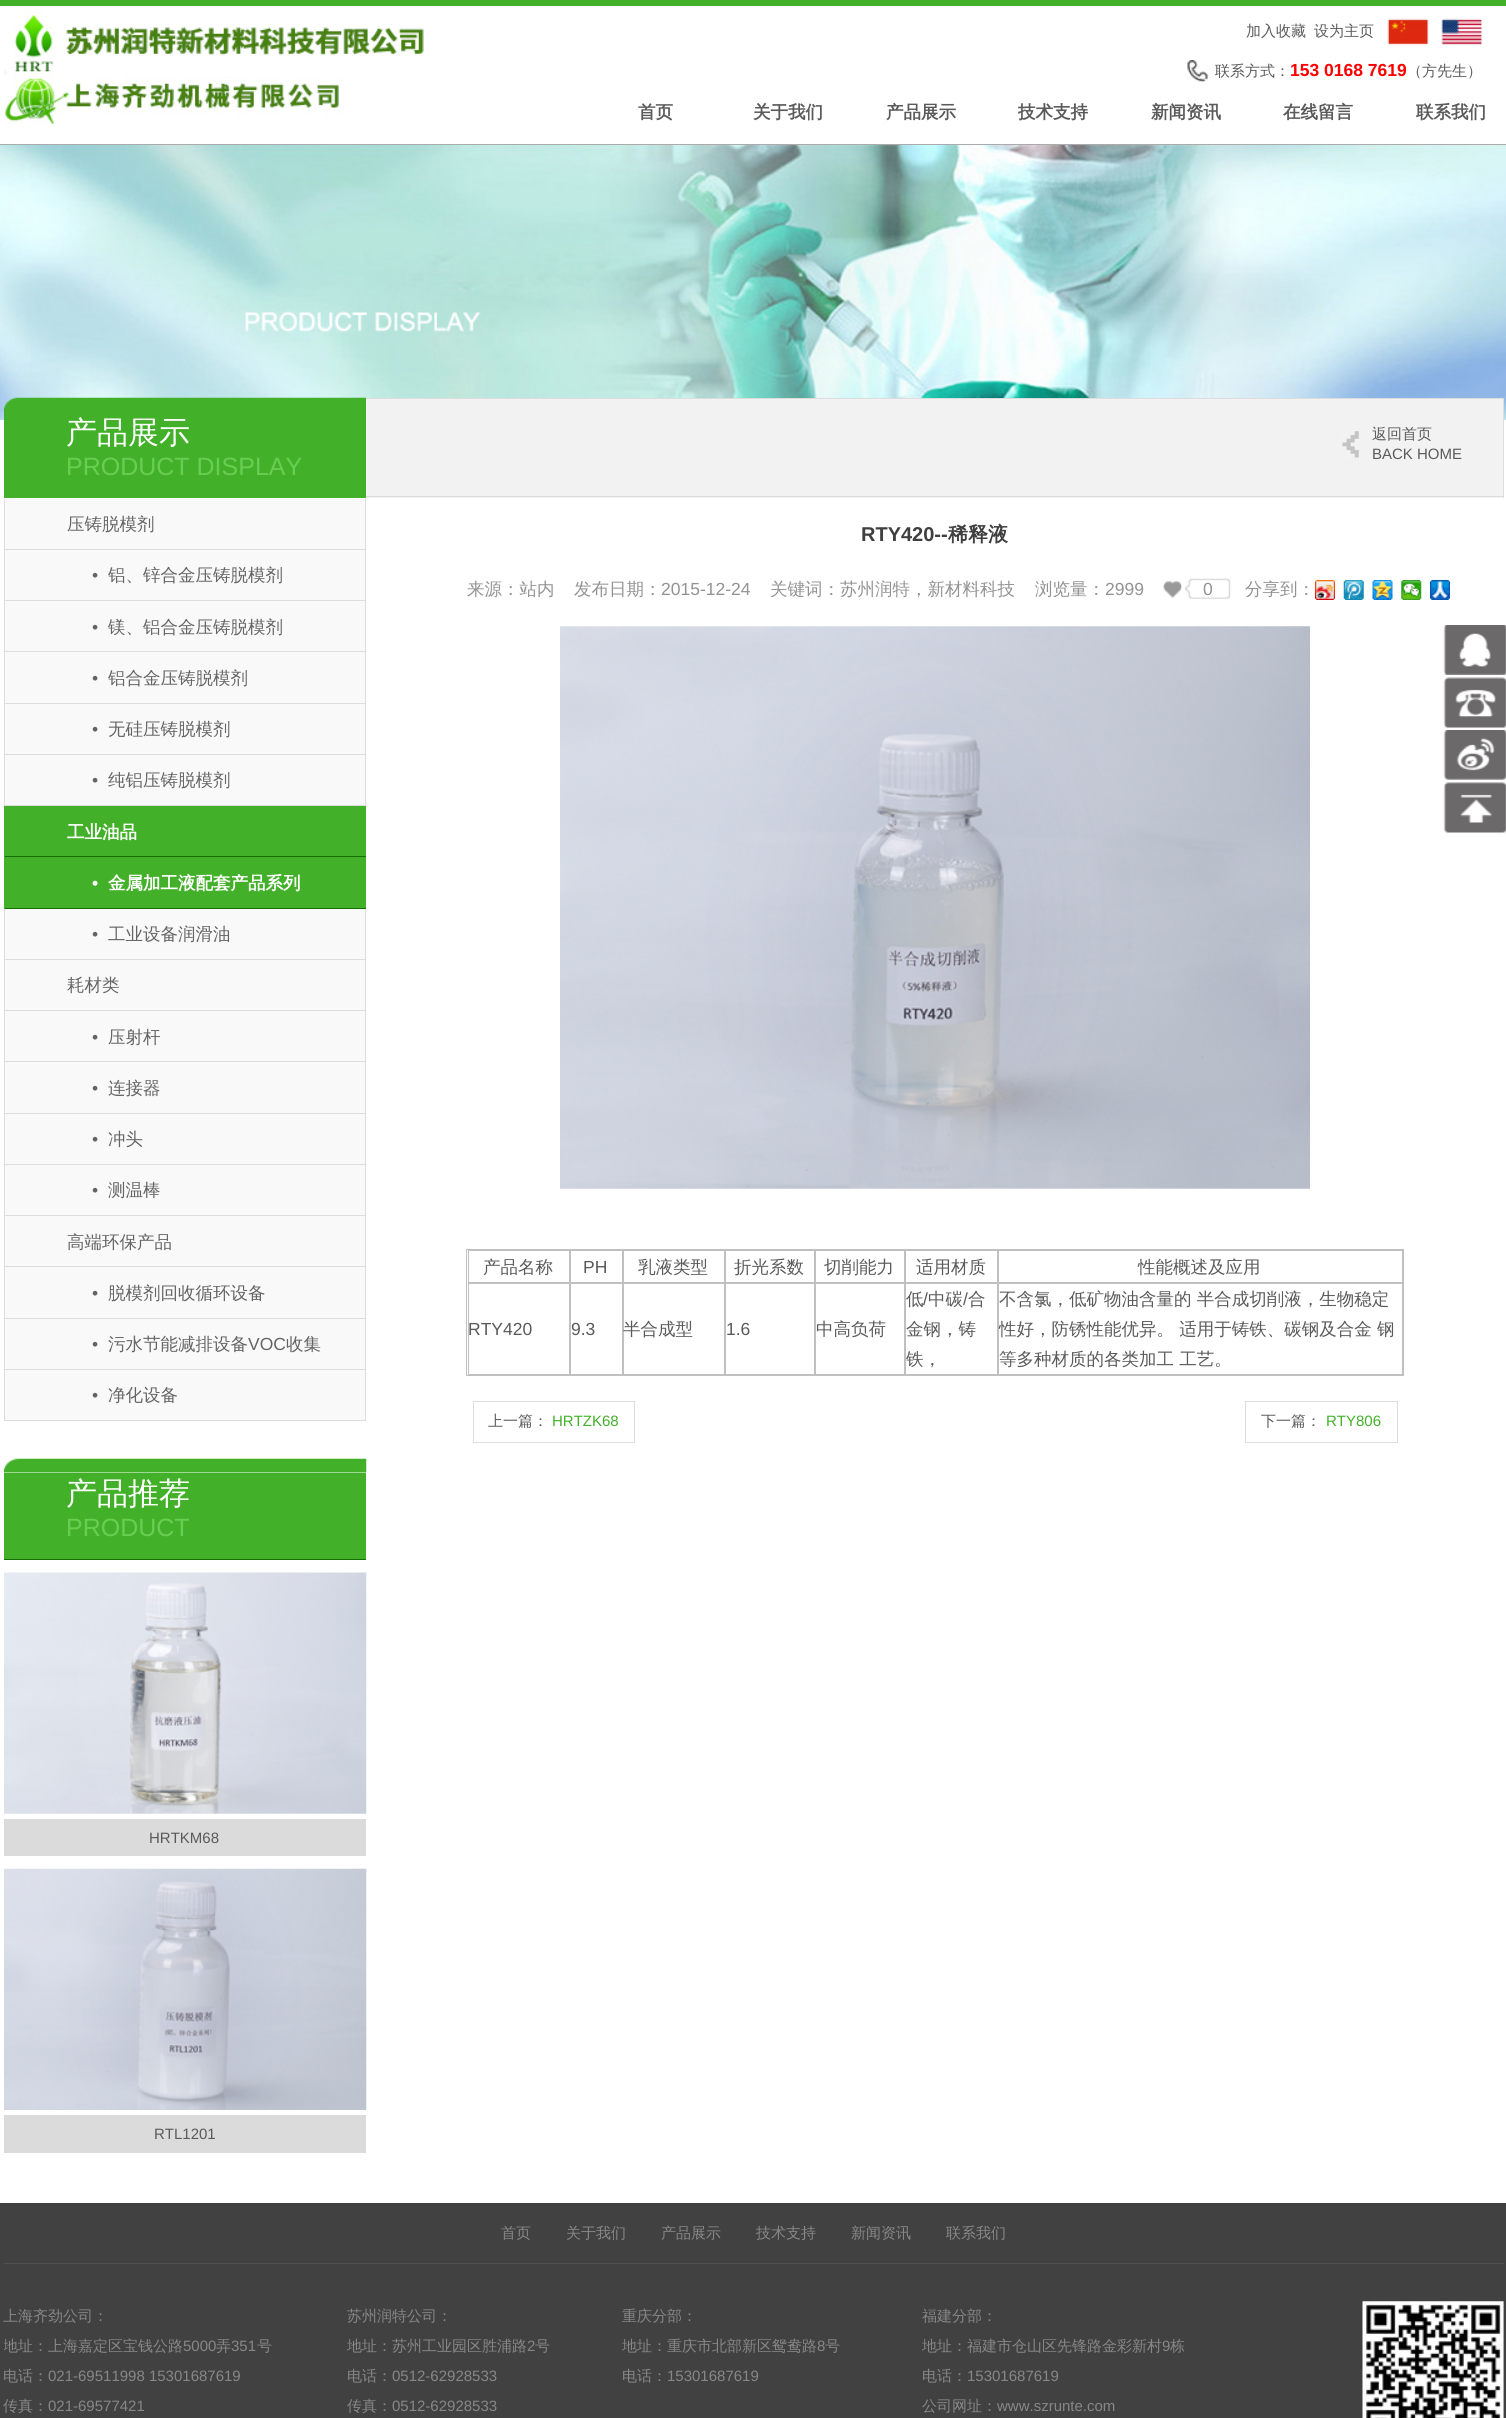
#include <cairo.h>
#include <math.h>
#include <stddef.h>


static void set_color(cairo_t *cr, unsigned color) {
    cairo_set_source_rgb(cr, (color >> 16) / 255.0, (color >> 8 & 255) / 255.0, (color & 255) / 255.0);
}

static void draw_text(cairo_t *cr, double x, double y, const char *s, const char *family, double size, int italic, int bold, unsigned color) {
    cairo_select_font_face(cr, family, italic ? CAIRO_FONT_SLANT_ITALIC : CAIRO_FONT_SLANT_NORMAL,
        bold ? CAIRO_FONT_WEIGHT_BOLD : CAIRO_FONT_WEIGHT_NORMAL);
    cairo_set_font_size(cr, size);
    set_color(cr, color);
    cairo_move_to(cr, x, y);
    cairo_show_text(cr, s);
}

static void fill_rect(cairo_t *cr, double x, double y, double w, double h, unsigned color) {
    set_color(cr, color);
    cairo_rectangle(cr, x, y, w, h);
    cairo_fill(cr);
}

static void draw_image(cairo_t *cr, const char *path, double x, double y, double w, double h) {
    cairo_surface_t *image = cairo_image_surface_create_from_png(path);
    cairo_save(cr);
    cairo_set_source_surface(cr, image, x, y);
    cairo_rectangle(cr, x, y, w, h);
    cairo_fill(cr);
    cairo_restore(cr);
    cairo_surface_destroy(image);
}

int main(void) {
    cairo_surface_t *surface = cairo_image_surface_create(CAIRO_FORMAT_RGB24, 1506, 2418);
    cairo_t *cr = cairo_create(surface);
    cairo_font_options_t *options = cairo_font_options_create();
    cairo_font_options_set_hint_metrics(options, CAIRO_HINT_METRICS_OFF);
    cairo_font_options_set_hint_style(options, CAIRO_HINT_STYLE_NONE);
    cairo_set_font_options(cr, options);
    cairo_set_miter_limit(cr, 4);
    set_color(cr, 0xFFFFFF);
    cairo_paint(cr);
    fill_rect(cr, 0, 0, 1506, 6, 0x42B129);
    fill_rect(cr, 0, 144, 1506, 1, 0xABABAB);
    draw_image(cr, "assets/img1.png", 4, 9, 420, 117);
    draw_text(cr, 1246, 36, "加入收藏", "WenQuanYi Zen Hei Medium", 15, 0, 0, 0x5B5A5A);
    draw_text(cr, 1314, 36, "设为主页", "WenQuanYi Zen Hei Medium", 15, 0, 0, 0x5B5A5A);
    draw_image(cr, "assets/img2.png", 1387, 18, 42, 27);
    draw_image(cr, "assets/img3.png", 1441, 18, 42, 27);
    draw_image(cr, "assets/img4.png", 1187, 60, 21, 22);
    draw_text(cr, 1215, 76, "联系方式：", "WenQuanYi Zen Hei Medium", 15, 0, 0, 0x5B5A5A);
    draw_text(cr, 1290, 76, "153 0168 7619", "Liberation Sans", 17.5, 0, 1, 0xFF0000);
    draw_text(cr, 1407, 76, "（方先生）", "WenQuanYi Zen Hei Medium", 15, 0, 0, 0x5B5A5A);
    draw_text(cr, 638, 118, "首页", "WenQuanYi Zen Hei", 17.5, 0, 1, 0x5B5A5A);
    draw_text(cr, 753, 118, "关于我们", "WenQuanYi Zen Hei", 17.5, 0, 1, 0x5B5A5A);
    draw_text(cr, 886, 118, "产品展示", "WenQuanYi Zen Hei", 17.5, 0, 1, 0x5B5A5A);
    draw_text(cr, 1018, 118, "技术支持", "WenQuanYi Zen Hei", 17.5, 0, 1, 0x5B5A5A);
    draw_text(cr, 1151, 118, "新闻资讯", "WenQuanYi Zen Hei", 17.5, 0, 1, 0x5B5A5A);
    draw_text(cr, 1283, 118, "在线留言", "WenQuanYi Zen Hei", 17.5, 0, 1, 0x5B5A5A);
    draw_text(cr, 1416, 118, "联系我们", "WenQuanYi Zen Hei", 17.5, 0, 1, 0x5B5A5A);
    draw_image(cr, "assets/img5.png", 0, 145, 1506, 275);
    draw_image(cr, "assets/img6.png", 3, 397, 364, 14);
    fill_rect(cr, 4, 411, 362, 87, 0x42B129);
    draw_text(cr, 66, 443, "产品展示", "WenQuanYi Zen Hei Medium", 31, 0, 0, 0xFFFFFF);
    draw_text(cr, 66, 475, "PRODUCT DISPLAY", "Liberation Sans", 25, 0, 0, 0x69CD53);
    fill_rect(cr, 5, 499, 360, 50, 0xF9F9F9);
    fill_rect(cr, 365, 499, 1, 307, 0xDDDDDD);
    fill_rect(cr, 4, 549, 362, 1, 0xDDDDDD);
    fill_rect(cr, 4, 499, 1, 51, 0xDDDDDD);
    draw_text(cr, 67, 530, "压铸脱模剂", "WenQuanYi Zen Hei Medium", 17.5, 0, 0, 0x646464);
    fill_rect(cr, 5, 550, 360, 50, 0xF9F9F9);
    fill_rect(cr, 4, 600, 362, 1, 0xDDDDDD);
    fill_rect(cr, 4, 550, 1, 51, 0xDDDDDD);
    draw_text(cr, 92, 581, "•", "Liberation Sans", 17.5, 0, 0, 0x646464);
    draw_text(cr, 108, 581, "铝、锌合金压铸脱模剂", "WenQuanYi Zen Hei Medium", 17.5, 0, 0, 0x646464);
    fill_rect(cr, 5, 601, 360, 102, 0xF9F9F9);
    fill_rect(cr, 4, 651, 362, 1, 0xDDDDDD);
    fill_rect(cr, 4, 601, 1, 52, 0xDDDDDD);
    draw_text(cr, 92, 633, "•", "Liberation Sans", 17.5, 0, 0, 0x646464);
    draw_text(cr, 108, 633, "镁、铝合金压铸脱模剂", "WenQuanYi Zen Hei Medium", 17.5, 0, 0, 0x646464);
    fill_rect(cr, 4, 703, 362, 1, 0xDDDDDD);
    fill_rect(cr, 4, 653, 1, 51, 0xDDDDDD);
    draw_text(cr, 92, 684, "•", "Liberation Sans", 17.5, 0, 0, 0x646464);
    draw_text(cr, 108, 684, "铝合金压铸脱模剂", "WenQuanYi Zen Hei Medium", 17.5, 0, 0, 0x646464);
    fill_rect(cr, 5, 704, 360, 50, 0xF9F9F9);
    fill_rect(cr, 4, 754, 362, 1, 0xDDDDDD);
    fill_rect(cr, 4, 704, 1, 51, 0xDDDDDD);
    draw_text(cr, 92, 735, "•", "Liberation Sans", 17.5, 0, 0, 0x646464);
    draw_text(cr, 108, 735, "无硅压铸脱模剂", "WenQuanYi Zen Hei Medium", 17.5, 0, 0, 0x646464);
    fill_rect(cr, 5, 755, 360, 50, 0xF9F9F9);
    fill_rect(cr, 4, 805, 362, 1, 0xDDDDDD);
    fill_rect(cr, 4, 755, 1, 51, 0xDDDDDD);
    draw_text(cr, 92, 786, "•", "Liberation Sans", 17.5, 0, 0, 0x646464);
    draw_text(cr, 108, 786, "纯铝压铸脱模剂", "WenQuanYi Zen Hei Medium", 17.5, 0, 0, 0x646464);
    fill_rect(cr, 5, 806, 361, 102, 0x42B129);
    fill_rect(cr, 4, 856, 362, 1, 0x146E00);
    fill_rect(cr, 4, 806, 1, 52, 0x42B129);
    draw_text(cr, 67, 838, "工业油品", "WenQuanYi Zen Hei", 17.5, 0, 1, 0xFFFFFF);
    fill_rect(cr, 4, 908, 362, 1, 0x146E00);
    fill_rect(cr, 4, 858, 1, 51, 0x42B129);
    draw_text(cr, 92, 889, "•", "Liberation Sans", 17.5, 0, 1, 0xFFFFFF);
    draw_text(cr, 108, 889, "金属加工液配套产品系列", "WenQuanYi Zen Hei", 17.5, 0, 1, 0xFFFFFF);
    fill_rect(cr, 5, 909, 360, 50, 0xF9F9F9);
    fill_rect(cr, 365, 909, 1, 256, 0xDDDDDD);
    fill_rect(cr, 4, 959, 362, 1, 0xDDDDDD);
    fill_rect(cr, 4, 909, 1, 51, 0xDDDDDD);
    draw_text(cr, 92, 940, "•", "Liberation Sans", 17.5, 0, 0, 0x646464);
    draw_text(cr, 108, 940, "工业设备润滑油", "WenQuanYi Zen Hei Medium", 17.5, 0, 0, 0x646464);
    fill_rect(cr, 5, 960, 360, 50, 0xF9F9F9);
    fill_rect(cr, 4, 1010, 362, 1, 0xDDDDDD);
    fill_rect(cr, 4, 960, 1, 51, 0xDDDDDD);
    draw_text(cr, 67, 991, "耗材类", "WenQuanYi Zen Hei Medium", 17.5, 0, 0, 0x646464);
    fill_rect(cr, 5, 1011, 360, 102, 0xF9F9F9);
    fill_rect(cr, 4, 1061, 362, 1, 0xDDDDDD);
    fill_rect(cr, 4, 1011, 1, 52, 0xDDDDDD);
    draw_text(cr, 92, 1043, "•", "Liberation Sans", 17.5, 0, 0, 0x646464);
    draw_text(cr, 108, 1043, "压射杆", "WenQuanYi Zen Hei Medium", 17.5, 0, 0, 0x646464);
    fill_rect(cr, 4, 1113, 362, 1, 0xDDDDDD);
    fill_rect(cr, 4, 1063, 1, 51, 0xDDDDDD);
    draw_text(cr, 92, 1094, "•", "Liberation Sans", 17.5, 0, 0, 0x646464);
    draw_text(cr, 108, 1094, "连接器", "WenQuanYi Zen Hei Medium", 17.5, 0, 0, 0x646464);
    fill_rect(cr, 5, 1114, 360, 50, 0xF9F9F9);
    fill_rect(cr, 4, 1164, 362, 1, 0xDDDDDD);
    fill_rect(cr, 4, 1114, 1, 51, 0xDDDDDD);
    draw_text(cr, 92, 1145, "•", "Liberation Sans", 17.5, 0, 0, 0x646464);
    draw_text(cr, 108, 1145, "冲头", "WenQuanYi Zen Hei Medium", 17.5, 0, 0, 0x646464);
    fill_rect(cr, 5, 1165, 360, 50, 0xF9F9F9);
    fill_rect(cr, 365, 1165, 1, 256, 0xDDDDDD);
    fill_rect(cr, 4, 1215, 362, 1, 0xDDDDDD);
    fill_rect(cr, 4, 1165, 1, 51, 0xDDDDDD);
    draw_text(cr, 92, 1196, "•", "Liberation Sans", 17.5, 0, 0, 0x646464);
    draw_text(cr, 108, 1196, "测温棒", "WenQuanYi Zen Hei Medium", 17.5, 0, 0, 0x646464);
    fill_rect(cr, 5, 1216, 360, 102, 0xF9F9F9);
    fill_rect(cr, 4, 1266, 362, 1, 0xDDDDDD);
    fill_rect(cr, 4, 1216, 1, 52, 0xDDDDDD);
    draw_text(cr, 67, 1248, "高端环保产品", "WenQuanYi Zen Hei Medium", 17.5, 0, 0, 0x646464);
    fill_rect(cr, 4, 1318, 362, 1, 0xDDDDDD);
    fill_rect(cr, 4, 1268, 1, 51, 0xDDDDDD);
    draw_text(cr, 92, 1299, "•", "Liberation Sans", 17.5, 0, 0, 0x646464);
    draw_text(cr, 108, 1299, "脱模剂回收循环设备", "WenQuanYi Zen Hei Medium", 17.5, 0, 0, 0x646464);
    fill_rect(cr, 5, 1319, 360, 50, 0xF9F9F9);
    fill_rect(cr, 4, 1369, 362, 1, 0xDDDDDD);
    fill_rect(cr, 4, 1319, 1, 51, 0xDDDDDD);
    draw_text(cr, 92, 1350, "•", "Liberation Sans", 17.5, 0, 0, 0x646464);
    draw_text(cr, 108, 1350, "污水节能减排设备", "WenQuanYi Zen Hei Medium", 17.5, 0, 0, 0x646464);
    draw_text(cr, 248, 1350, "VOC", "Liberation Sans", 17.5, 0, 0, 0x646464);
    draw_text(cr, 286, 1350, "收集", "WenQuanYi Zen Hei Medium", 17.5, 0, 0, 0x646464);
    fill_rect(cr, 5, 1370, 360, 50, 0xF9F9F9);
    fill_rect(cr, 4, 1420, 362, 1, 0xDDDDDD);
    fill_rect(cr, 4, 1370, 1, 51, 0xDDDDDD);
    draw_text(cr, 92, 1401, "•", "Liberation Sans", 17.5, 0, 0, 0x646464);
    draw_text(cr, 108, 1401, "净化设备", "WenQuanYi Zen Hei Medium", 17.5, 0, 0, 0x646464);
    draw_image(cr, "assets/img7.png", 3, 1458, 364, 15);
    fill_rect(cr, 4, 1473, 362, 86, 0x42B129);
    fill_rect(cr, 4, 1559, 362, 1, 0x146E00);
    draw_text(cr, 66, 1504, "产品推荐", "WenQuanYi Zen Hei Medium", 31, 0, 0, 0xFFFFFF);
    draw_text(cr, 66, 1536, "PRODUCT", "Liberation Sans", 25, 0, 0, 0x69CD53);
    draw_image(cr, "assets/img8.png", 4, 1572, 363, 242);
    fill_rect(cr, 4, 1819, 362, 37, 0xDBDBDB);
    draw_text(cr, 149, 1843, "HRTKM68", "Liberation Sans", 15, 0, 0, 0x5B5A5A);
    draw_image(cr, "assets/img9.png", 4, 1868, 363, 242);
    fill_rect(cr, 4, 2115, 362, 38, 0xDBDBDB);
    draw_text(cr, 154, 2139, "RTL1201", "Liberation Sans", 15, 0, 0, 0x5B5A5A);
    fill_rect(cr, 366, 399, 1137, 99, 0xF2F2F2);
    fill_rect(cr, 366, 398, 1138, 1, 0xDDDDDD);
    fill_rect(cr, 1503, 398, 1, 100, 0xDDDDDD);
    fill_rect(cr, 366, 496, 1138, 1, 0xDDDDDD);
    draw_image(cr, "assets/img10.png", 1342, 431, 17, 27);
    draw_text(cr, 1372, 439, "返回首页", "WenQuanYi Zen Hei Medium", 15, 0, 0, 0x5B5A5A);
    draw_text(cr, 1372, 459, "BACK HOME", "Liberation Sans", 15, 0, 0, 0x5B5A5A);
    draw_text(cr, 861, 541, "RTY420--", "Liberation Sans", 20, 0, 1, 0x3F3F3F);
    draw_text(cr, 948, 541, "稀释液", "WenQuanYi Zen Hei", 20, 0, 1, 0x3F3F3F);
    draw_text(cr, 467, 595, "来源：站内", "WenQuanYi Zen Hei Medium", 17.5, 0, 0, 0x949292);
    draw_text(cr, 574, 595, "发布日期：", "WenQuanYi Zen Hei Medium", 17.5, 0, 0, 0x949292);
    draw_text(cr, 661, 595, "2015-12-24", "Liberation Sans", 17.5, 0, 0, 0x949292);
    draw_text(cr, 770, 595, "关键词：苏州润特，新材料科技", "WenQuanYi Zen Hei Medium", 17.5, 0, 0, 0x949292);
    draw_text(cr, 1035, 595, "浏览量：", "WenQuanYi Zen Hei Medium", 17.5, 0, 0, 0x949292);
    draw_text(cr, 1105, 595, "2999", "Liberation Sans", 17.5, 0, 0, 0x949292);
    draw_image(cr, "assets/img11.png", 1163, 581, 19, 17);
    draw_image(cr, "assets/img12.png", 1185, 578, 46, 21);
    draw_text(cr, 1203, 595, "0", "Liberation Sans", 17.5, 0, 0, 0x949292);
    draw_text(cr, 1245, 595, "分享到：", "WenQuanYi Zen Hei Medium", 17.5, 0, 0, 0x949292);
    draw_image(cr, "assets/img13.png", 1315, 580, 20, 20);
    draw_image(cr, "assets/img14.png", 1343, 580, 21, 20);
    draw_image(cr, "assets/img15.png", 1372, 580, 21, 20);
    draw_image(cr, "assets/img16.png", 1401, 580, 21, 20);
    draw_image(cr, "assets/img17.png", 1430, 580, 20, 20);
    draw_image(cr, "assets/img18.png", 560, 626, 750, 563);
    cairo_rectangle(cr, 466.5, 1249.5, 937, 126);
    set_color(cr, 0xC0C0C0);
    cairo_set_line_width(cr, 1);
    cairo_stroke(cr);
    cairo_rectangle(cr, 468.5, 1250.5, 101, 32);
    cairo_stroke(cr);
    draw_text(cr, 483, 1273, "产品名称", "WenQuanYi Zen Hei Medium", 17.5, 0, 0, 0x5B5A5A);
    cairo_rectangle(cr, 570.5, 1250.5, 52, 32);
    set_color(cr, 0xC0C0C0);
    cairo_stroke(cr);
    draw_text(cr, 583, 1273, "PH", "Liberation Sans", 17.5, 0, 0, 0x5B5A5A);
    cairo_rectangle(cr, 623.5, 1250.5, 101, 32);
    set_color(cr, 0xC0C0C0);
    cairo_stroke(cr);
    draw_text(cr, 638, 1273, "乳液类型", "WenQuanYi Zen Hei Medium", 17.5, 0, 0, 0x5B5A5A);
    cairo_rectangle(cr, 725.5, 1250.5, 89, 32);
    set_color(cr, 0xC0C0C0);
    cairo_stroke(cr);
    draw_text(cr, 734, 1273, "折光系数", "WenQuanYi Zen Hei Medium", 17.5, 0, 0, 0x5B5A5A);
    cairo_rectangle(cr, 815.5, 1250.5, 89, 32);
    set_color(cr, 0xC0C0C0);
    cairo_stroke(cr);
    draw_text(cr, 824, 1273, "切削能力", "WenQuanYi Zen Hei Medium", 17.5, 0, 0, 0x5B5A5A);
    cairo_rectangle(cr, 905.5, 1250.5, 92, 32);
    set_color(cr, 0xC0C0C0);
    cairo_stroke(cr);
    draw_text(cr, 916, 1273, "适用材质", "WenQuanYi Zen Hei Medium", 17.5, 0, 0, 0x5B5A5A);
    cairo_rectangle(cr, 998.5, 1250.5, 404, 32);
    set_color(cr, 0xC0C0C0);
    cairo_stroke(cr);
    draw_text(cr, 1138, 1273, "性能概述及应用", "WenQuanYi Zen Hei Medium", 17.5, 0, 0, 0x5B5A5A);
    cairo_rectangle(cr, 468.5, 1283.5, 101, 91);
    set_color(cr, 0xC0C0C0);
    cairo_stroke(cr);
    draw_text(cr, 468, 1335, "RTY420", "Liberation Sans", 17.5, 0, 0, 0x5B5A5A);
    cairo_rectangle(cr, 570.5, 1283.5, 52, 91);
    set_color(cr, 0xC0C0C0);
    cairo_stroke(cr);
    draw_text(cr, 571, 1335, "9.3", "Liberation Sans", 17.5, 0, 0, 0x5B5A5A);
    cairo_rectangle(cr, 623.5, 1283.5, 101, 91);
    set_color(cr, 0xC0C0C0);
    cairo_stroke(cr);
    draw_text(cr, 623, 1335, "半合成型", "WenQuanYi Zen Hei Medium", 17.5, 0, 0, 0x5B5A5A);
    cairo_rectangle(cr, 725.5, 1283.5, 89, 91);
    set_color(cr, 0xC0C0C0);
    cairo_stroke(cr);
    draw_text(cr, 726, 1335, "1.6", "Liberation Sans", 17.5, 0, 0, 0x5B5A5A);
    cairo_rectangle(cr, 815.5, 1283.5, 89, 91);
    set_color(cr, 0xC0C0C0);
    cairo_stroke(cr);
    draw_text(cr, 816, 1335, "中高负荷", "WenQuanYi Zen Hei Medium", 17.5, 0, 0, 0x5B5A5A);
    cairo_rectangle(cr, 905.5, 1283.5, 92, 91);
    set_color(cr, 0xC0C0C0);
    cairo_stroke(cr);
    draw_text(cr, 906, 1305, "低", "WenQuanYi Zen Hei Medium", 17.5, 0, 0, 0x5B5A5A);
    draw_text(cr, 923, 1305, "/", "Liberation Sans", 17.5, 0, 0, 0x5B5A5A);
    draw_text(cr, 928, 1305, "中碳", "WenQuanYi Zen Hei Medium", 17.5, 0, 0, 0x5B5A5A);
    draw_text(cr, 963, 1305, "/", "Liberation Sans", 17.5, 0, 0, 0x5B5A5A);
    draw_text(cr, 968, 1305, "合", "WenQuanYi Zen Hei Medium", 17.5, 0, 0, 0x5B5A5A);
    draw_text(cr, 906, 1335, "金钢，铸", "WenQuanYi Zen Hei Medium", 17.5, 0, 0, 0x5B5A5A);
    draw_text(cr, 906, 1365, "铁，", "WenQuanYi Zen Hei Medium", 17.5, 0, 0, 0x5B5A5A);
    cairo_rectangle(cr, 998.5, 1283.5, 404, 91);
    set_color(cr, 0xC0C0C0);
    cairo_stroke(cr);
    draw_text(cr, 999, 1305, "不含氯，低矿物油含量的 半合成切削液，生物稳定", "WenQuanYi Zen Hei Medium", 17.5, 0, 0, 0x5B5A5A);
    draw_text(cr, 999, 1335, "性好，防锈性能优异。 适用于铸铁、碳钢及合金 钢", "WenQuanYi Zen Hei Medium", 17.5, 0, 0, 0x5B5A5A);
    draw_text(cr, 999, 1365, "等多种材质的各类加工 工艺。", "WenQuanYi Zen Hei Medium", 17.5, 0, 0, 0x5B5A5A);
    cairo_rectangle(cr, 473.5, 1401.5, 161, 41);
    set_color(cr, 0xDDDDDD);
    cairo_stroke(cr);
    draw_text(cr, 488, 1426, "上一篇：", "WenQuanYi Zen Hei Medium", 15, 0, 0, 0x5B5A5A);
    draw_text(cr, 552, 1426, "HRTZK68", "Liberation Sans", 15, 0, 0, 0x42B129);
    cairo_rectangle(cr, 1245.5, 1401.5, 152, 41);
    set_color(cr, 0xDDDDDD);
    cairo_stroke(cr);
    draw_text(cr, 1261, 1426, "下一篇：", "WenQuanYi Zen Hei Medium", 15, 0, 0, 0x5B5A5A);
    draw_text(cr, 1326, 1426, "RTY806", "Liberation Sans", 15, 0, 0, 0x42B129);
    draw_image(cr, "assets/img19.png", 1443, 625, 63, 50);
    draw_image(cr, "assets/img20.png", 1443, 677, 63, 51);
    draw_image(cr, "assets/img21.png", 1443, 730, 63, 50);
    draw_image(cr, "assets/img22.png", 1443, 782, 63, 51);
    fill_rect(cr, 0, 2203, 1506, 215, 0x414141);
    fill_rect(cr, 4, 2263, 1500, 1, 0x515050);
    draw_text(cr, 501, 2238, "首页", "WenQuanYi Zen Hei Medium", 15, 0, 0, 0x878787);
    draw_text(cr, 566, 2238, "关于我们", "WenQuanYi Zen Hei Medium", 15, 0, 0, 0x878787);
    draw_text(cr, 661, 2238, "产品展示", "WenQuanYi Zen Hei Medium", 15, 0, 0, 0x878787);
    draw_text(cr, 756, 2238, "技术支持", "WenQuanYi Zen Hei Medium", 15, 0, 0, 0x878787);
    draw_text(cr, 851, 2238, "新闻资讯", "WenQuanYi Zen Hei Medium", 15, 0, 0, 0x878787);
    draw_text(cr, 946, 2238, "联系我们", "WenQuanYi Zen Hei Medium", 15, 0, 0, 0x878787);
    draw_text(cr, 3, 2321, "上海齐劲公司：", "WenQuanYi Zen Hei Medium", 15, 0, 0, 0x878787);
    cairo_save(cr);
    cairo_rectangle(cr, 4, 2264, 1500, 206);
    cairo_clip(cr);
    draw_text(cr, 3, 2351, "地址：上海嘉定区宝钱公路", "WenQuanYi Zen Hei Medium", 15, 0, 0, 0x878787);
    cairo_restore(cr);
    draw_text(cr, 183, 2351, "5000", "Liberation Sans", 15, 0, 0, 0x878787);
    draw_text(cr, 216, 2351, "弄", "WenQuanYi Zen Hei Medium", 15, 0, 0, 0x878787);
    draw_text(cr, 231, 2351, "351", "Liberation Sans", 15, 0, 0, 0x878787);
    draw_text(cr, 257, 2351, "号", "WenQuanYi Zen Hei Medium", 15, 0, 0, 0x878787);
    draw_text(cr, 3, 2381, "电话：", "WenQuanYi Zen Hei Medium", 15, 0, 0, 0x878787);
    draw_text(cr, 48, 2381, "021-69511998 15301687619", "Liberation Sans", 15, 0, 0, 0x878787);
    draw_text(cr, 3, 2411, "传真：", "WenQuanYi Zen Hei Medium", 15, 0, 0, 0x878787);
    draw_text(cr, 48, 2411, "021-69577421", "Liberation Sans", 15, 0, 0, 0x878787);
    draw_text(cr, 347, 2321, "苏州润特公司：", "WenQuanYi Zen Hei Medium", 15, 0, 0, 0x878787);
    draw_text(cr, 347, 2351, "地址：苏州工业园区胜浦路", "WenQuanYi Zen Hei Medium", 15, 0, 0, 0x878787);
    draw_text(cr, 527, 2351, "2", "Liberation Sans", 15, 0, 0, 0x878787);
    draw_text(cr, 535, 2351, "号", "WenQuanYi Zen Hei Medium", 15, 0, 0, 0x878787);
    draw_text(cr, 347, 2381, "电话：", "WenQuanYi Zen Hei Medium", 15, 0, 0, 0x878787);
    draw_text(cr, 392, 2381, "0512-62928533", "Liberation Sans", 15, 0, 0, 0x878787);
    draw_text(cr, 347, 2411, "传真：", "WenQuanYi Zen Hei Medium", 15, 0, 0, 0x878787);
    draw_text(cr, 392, 2411, "0512-62928533", "Liberation Sans", 15, 0, 0, 0x878787);
    draw_text(cr, 622, 2321, "重庆分部：", "WenQuanYi Zen Hei Medium", 15, 0, 0, 0x878787);
    draw_text(cr, 622, 2351, "地址：重庆市北部新区鸳鸯路", "WenQuanYi Zen Hei Medium", 15, 0, 0, 0x878787);
    draw_text(cr, 817, 2351, "8", "Liberation Sans", 15, 0, 0, 0x878787);
    draw_text(cr, 825, 2351, "号", "WenQuanYi Zen Hei Medium", 15, 0, 0, 0x878787);
    draw_text(cr, 622, 2381, "电话：", "WenQuanYi Zen Hei Medium", 15, 0, 0, 0x878787);
    draw_text(cr, 667, 2381, "15301687619", "Liberation Sans", 15, 0, 0, 0x878787);
    draw_text(cr, 922, 2321, "福建分部：", "WenQuanYi Zen Hei Medium", 15, 0, 0, 0x878787);
    draw_text(cr, 922, 2351, "地址：福建市仓山区先锋路金彩新村", "WenQuanYi Zen Hei Medium", 15, 0, 0, 0x878787);
    draw_text(cr, 1162, 2351, "9", "Liberation Sans", 15, 0, 0, 0x878787);
    draw_text(cr, 1170, 2351, "栋", "WenQuanYi Zen Hei Medium", 15, 0, 0, 0x878787);
    draw_text(cr, 922, 2381, "电话：", "WenQuanYi Zen Hei Medium", 15, 0, 0, 0x878787);
    draw_text(cr, 967, 2381, "15301687619", "Liberation Sans", 15, 0, 0, 0x878787);
    draw_text(cr, 922, 2411, "公司网址：", "WenQuanYi Zen Hei Medium", 15, 0, 0, 0x878787);
    draw_text(cr, 997, 2411, "www.szrunte.com", "Liberation Sans", 15, 0, 0, 0x878787);
    draw_image(cr, "assets/img23.png", 1362, 2301, 142, 117);
    cairo_surface_write_to_png(surface, "output.png");
    cairo_font_options_destroy(options);
    cairo_destroy(cr);
    cairo_surface_destroy(surface);
    return 0;
}
